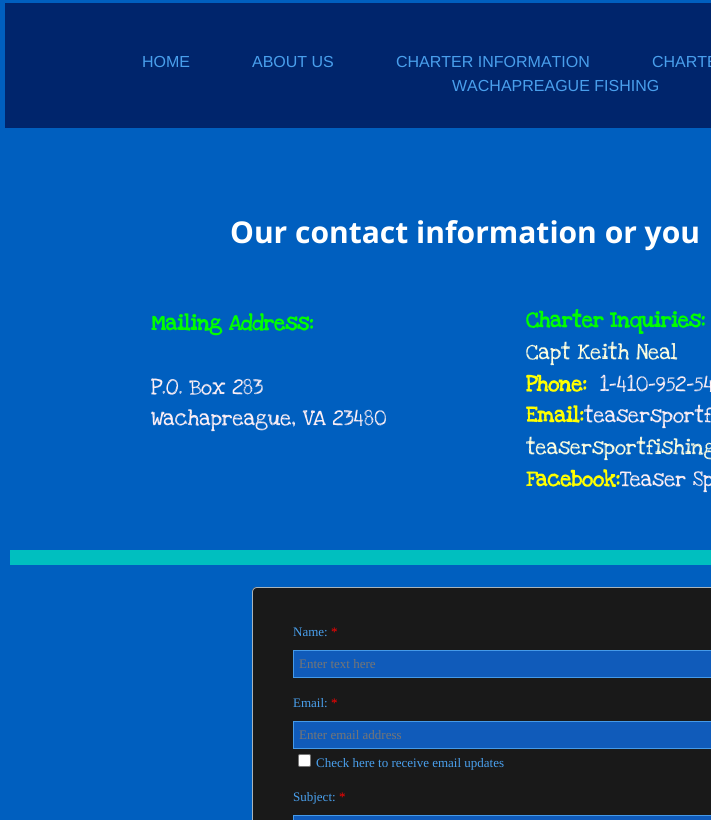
#include <cairo.h>
#include <math.h>
#include <stddef.h>


static void set_color(cairo_t *cr, unsigned color) {
    cairo_set_source_rgb(cr, (color >> 16) / 255.0, (color >> 8 & 255) / 255.0, (color & 255) / 255.0);
}

static void draw_text(cairo_t *cr, double x, double y, const char *s, const char *family, double size, int italic, int bold, unsigned color) {
    cairo_select_font_face(cr, family, italic ? CAIRO_FONT_SLANT_ITALIC : CAIRO_FONT_SLANT_NORMAL,
        bold ? CAIRO_FONT_WEIGHT_BOLD : CAIRO_FONT_WEIGHT_NORMAL);
    cairo_set_font_size(cr, size);
    set_color(cr, color);
    cairo_move_to(cr, x, y);
    cairo_show_text(cr, s);
}

static void fill_rect(cairo_t *cr, double x, double y, double w, double h, unsigned color) {
    set_color(cr, color);
    cairo_rectangle(cr, x, y, w, h);
    cairo_fill(cr);
}

static void rounded_rect(cairo_t *cr, double x, double y, double w, double h, double r) {
    cairo_new_sub_path(cr);
    cairo_arc(cr, x + w - r, y + h - r, r, 0, M_PI / 2);
    cairo_arc(cr, x + r, y + h - r, r, M_PI / 2, M_PI);
    cairo_arc(cr, x + r, y + r, r, M_PI, 1.5 * M_PI);
    cairo_arc(cr, x + w - r, y + r, r, 1.5 * M_PI, 2 * M_PI);
    cairo_close_path(cr);
}

int main(void) {
    cairo_surface_t *surface = cairo_image_surface_create(CAIRO_FORMAT_RGB24, 711, 820);
    cairo_t *cr = cairo_create(surface);
    cairo_font_options_t *options = cairo_font_options_create();
    cairo_font_options_set_hint_metrics(options, CAIRO_HINT_METRICS_OFF);
    cairo_font_options_set_hint_style(options, CAIRO_HINT_STYLE_NONE);
    cairo_set_font_options(cr, options);
    cairo_set_miter_limit(cr, 4);
    set_color(cr, 0x005FBF);
    cairo_paint(cr);
    fill_rect(cr, 5, 3, 706, 125, 0x00256C);
    draw_text(cr, 142, 67, "HOME", "Liberation Sans", 16, 0, 0, 0x499FEC);
    draw_text(cr, 252, 67, "ABOUT US", "Liberation Sans", 16, 0, 0, 0x499FEC);
    draw_text(cr, 396, 67, "CHARTER INFORMATION", "Liberation Sans", 16, 0, 0, 0x499FEC);
    draw_text(cr, 652, 67, "CHARTE", "Liberation Sans", 16, 0, 0, 0x499FEC);
    draw_text(cr, 452, 91, "WACHAPREAGUE FISHING", "Liberation Sans", 16, 0, 0, 0x499FEC);
    draw_text(cr, 230, 243, "Our contact information or you", "Open Sans", 30, 0, 1, 0xFFFFFF);
    draw_text(cr, 151, 330, "Mailing Address:", "Love Ya Like A Sister", 22, 0, 1, 0x00FF00);
    draw_text(cr, 151, 394, "P.O. Box 283", "Love Ya Like A Sister", 22, 0, 0, 0xFFF0F5);
    draw_text(cr, 151, 425, "Wachapreague, VA 23480", "Love Ya Like A Sister", 22, 0, 0, 0xFFF0F5);
    draw_text(cr, 526, 327, "Charter Inquiries:", "Love Ya Like A Sister", 22, 0, 1, 0x00FF00);
    draw_text(cr, 526, 359, "Capt Keith Neal", "Love Ya Like A Sister", 22, 0, 0, 0xFFFFE0);
    draw_text(cr, 526, 391, "Phone:", "Love Ya Like A Sister", 22, 0, 1, 0xFFFF00);
    draw_text(cr, 600, 391, "1-410-952-54", "Love Ya Like A Sister", 22, 0, 0, 0xFFF0F5);
    draw_text(cr, 526, 422, "Email:", "Love Ya Like A Sister", 22, 0, 1, 0xFFFF00);
    draw_text(cr, 584, 422, "teasersportf", "Love Ya Like A Sister", 22, 0, 0, 0xFFF0F5);
    draw_text(cr, 526, 454, "teasersportfishing", "Love Ya Like A Sister", 22, 0, 0, 0xFFFFE0);
    draw_text(cr, 526, 486, "Facebook:", "Love Ya Like A Sister", 22, 0, 1, 0xFFFF00);
    draw_text(cr, 620, 486, "Teaser Sp", "Love Ya Like A Sister", 22, 0, 0, 0xFFF0F5);
    fill_rect(cr, 10, 550, 701, 15, 0x00BFBF);
    set_color(cr, 0x191919);
    cairo_new_path(cr);
    cairo_move_to(cr, 257, 587);
    cairo_line_to(cr, 711, 587);
    cairo_line_to(cr, 711, 820);
    cairo_line_to(cr, 252, 820);
    cairo_line_to(cr, 252, 592);
    cairo_curve_to(cr, 252, 589, 254, 587, 257, 587);
    cairo_close_path(cr);
    cairo_fill(cr);
    rounded_rect(cr, 252.5, 587.5, 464, 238, 4.5);
    set_color(cr, 0xA9B4BB);
    cairo_set_line_width(cr, 1);
    cairo_stroke(cr);
    draw_text(cr, 293, 636, "Name:", "Liberation Serif", 13, 0, 0, 0x499FEC);
    draw_text(cr, 331, 636, "*", "Liberation Serif", 13, 0, 0, 0xFF0000);
    set_color(cr, 0x105BBA);
    cairo_rectangle(cr, 293.5, 650.5, 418, 27);
    cairo_fill_preserve(cr);
    set_color(cr, 0x459AE9);
    cairo_stroke(cr);
    draw_text(cr, 299, 668, "Enter text here", "Liberation Serif", 13, 0, 0, 0x757575);
    draw_text(cr, 293, 707, "Email:", "Liberation Serif", 13, 0, 0, 0x499FEC);
    draw_text(cr, 331, 707, "*", "Liberation Serif", 13, 0, 0, 0xFF0000);
    set_color(cr, 0x105BBA);
    cairo_rectangle(cr, 293.5, 721.5, 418, 27);
    cairo_fill_preserve(cr);
    set_color(cr, 0x459AE9);
    cairo_stroke(cr);
    draw_text(cr, 299, 739, "Enter email address", "Liberation Serif", 13, 0, 0, 0x757575);
    set_color(cr, 0xFFFFFF);
    rounded_rect(cr, 298.5, 754.5, 12, 12, 1.5);
    cairo_fill_preserve(cr);
    set_color(cr, 0x767676);
    cairo_stroke(cr);
    draw_text(cr, 316, 767, "Check here to receive email updates", "Liberation Serif", 13, 0, 0, 0x499FEC);
    draw_text(cr, 293, 801, "Subject:", "Liberation Serif", 13, 0, 0, 0x499FEC);
    draw_text(cr, 339, 801, "*", "Liberation Serif", 13, 0, 0, 0xFF0000);
    set_color(cr, 0x105BBA);
    cairo_rectangle(cr, 293.5, 815.5, 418, 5);
    cairo_fill_preserve(cr);
    set_color(cr, 0x459AE9);
    cairo_stroke(cr);
    cairo_surface_write_to_png(surface, "output.png");
    cairo_font_options_destroy(options);
    cairo_destroy(cr);
    cairo_surface_destroy(surface);
    return 0;
}
